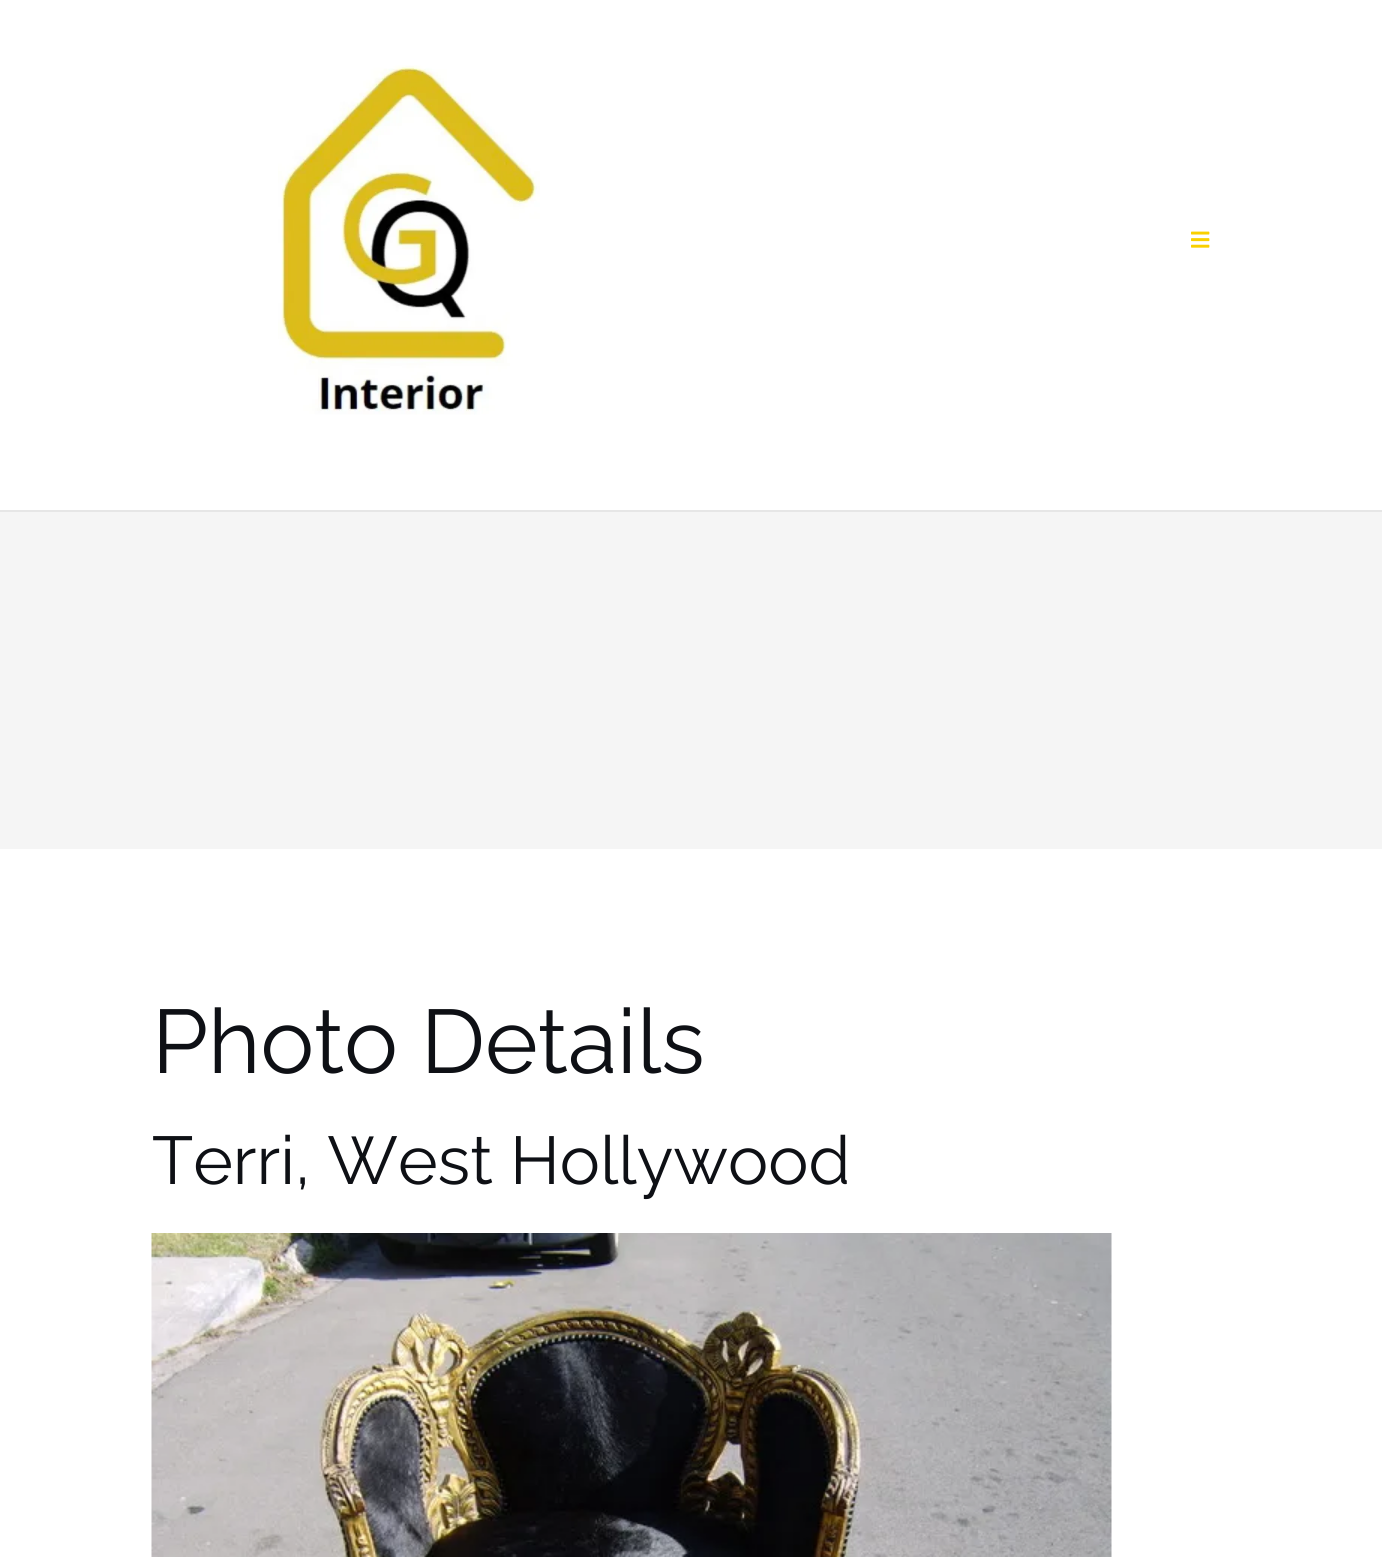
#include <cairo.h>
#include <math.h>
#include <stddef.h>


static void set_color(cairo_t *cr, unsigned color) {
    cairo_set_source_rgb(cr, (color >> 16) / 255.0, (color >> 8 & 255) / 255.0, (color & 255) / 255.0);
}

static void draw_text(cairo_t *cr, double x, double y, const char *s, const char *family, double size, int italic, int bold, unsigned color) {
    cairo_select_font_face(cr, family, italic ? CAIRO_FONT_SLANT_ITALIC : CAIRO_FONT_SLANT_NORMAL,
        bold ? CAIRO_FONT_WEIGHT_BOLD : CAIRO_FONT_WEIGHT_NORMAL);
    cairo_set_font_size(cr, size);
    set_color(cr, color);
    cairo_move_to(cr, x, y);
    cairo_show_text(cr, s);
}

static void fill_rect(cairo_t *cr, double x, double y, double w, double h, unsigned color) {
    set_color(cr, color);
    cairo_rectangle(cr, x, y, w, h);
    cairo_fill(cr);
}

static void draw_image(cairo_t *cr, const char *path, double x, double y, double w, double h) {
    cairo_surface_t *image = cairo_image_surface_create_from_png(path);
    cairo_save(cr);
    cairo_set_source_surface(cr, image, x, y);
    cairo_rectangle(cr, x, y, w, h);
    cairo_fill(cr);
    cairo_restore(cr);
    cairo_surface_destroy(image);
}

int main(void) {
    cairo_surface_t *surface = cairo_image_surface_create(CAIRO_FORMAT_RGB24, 1382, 1557);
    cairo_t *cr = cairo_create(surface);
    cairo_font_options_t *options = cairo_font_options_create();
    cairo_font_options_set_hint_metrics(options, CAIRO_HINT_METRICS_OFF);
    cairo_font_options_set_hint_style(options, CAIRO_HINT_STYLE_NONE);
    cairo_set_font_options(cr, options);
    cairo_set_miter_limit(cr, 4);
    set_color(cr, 0xFFFFFF);
    cairo_paint(cr);
    fill_rect(cr, 0, 510, 1382, 2, 0xE6E6E6);
    draw_image(cr, "assets/img1.png", 278, 65, 262, 350);
    draw_image(cr, "assets/img2.png", 1191, 231, 19, 17);
    fill_rect(cr, 0, 512, 1382, 337, 0xF5F5F5);
    draw_text(cr, 152, 1073, "Photo Details", "Raleway", 90, 0, 0, 0x0E1015);
    draw_text(cr, 152, 1184, "Terri, West Hollywood", "Raleway", 67.5, 0, 0, 0x0E1015);
    draw_image(cr, "assets/img3.png", 151, 1233, 961, 324);
    cairo_surface_write_to_png(surface, "output.png");
    cairo_font_options_destroy(options);
    cairo_destroy(cr);
    cairo_surface_destroy(surface);
    return 0;
}
